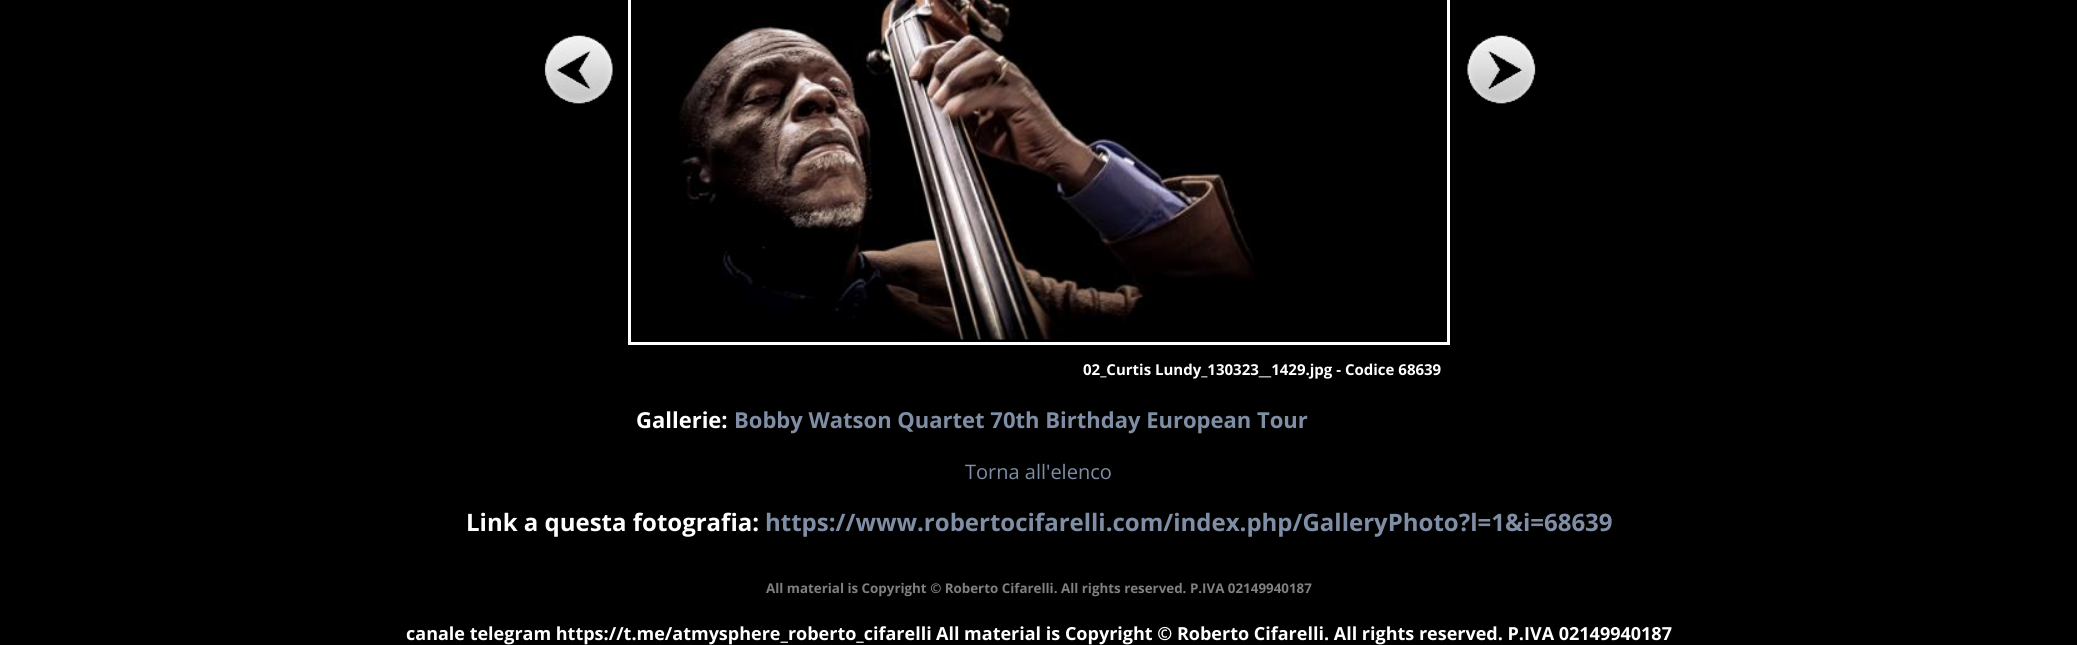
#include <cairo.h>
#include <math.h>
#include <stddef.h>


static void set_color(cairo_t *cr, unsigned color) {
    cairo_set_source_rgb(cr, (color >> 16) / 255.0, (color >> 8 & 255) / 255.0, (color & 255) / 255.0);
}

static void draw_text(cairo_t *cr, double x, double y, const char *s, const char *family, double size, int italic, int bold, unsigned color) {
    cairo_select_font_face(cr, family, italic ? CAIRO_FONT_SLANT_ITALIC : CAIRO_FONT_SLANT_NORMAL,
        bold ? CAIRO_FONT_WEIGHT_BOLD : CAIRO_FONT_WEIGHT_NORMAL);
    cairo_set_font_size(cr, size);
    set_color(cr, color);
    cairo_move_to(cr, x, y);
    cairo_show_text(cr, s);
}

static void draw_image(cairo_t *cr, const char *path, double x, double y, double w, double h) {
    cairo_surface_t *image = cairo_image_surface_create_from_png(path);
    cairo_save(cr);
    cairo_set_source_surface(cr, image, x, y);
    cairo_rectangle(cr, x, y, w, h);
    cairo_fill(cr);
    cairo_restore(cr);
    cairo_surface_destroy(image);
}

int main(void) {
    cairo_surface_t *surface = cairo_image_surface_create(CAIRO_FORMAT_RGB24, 2077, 645);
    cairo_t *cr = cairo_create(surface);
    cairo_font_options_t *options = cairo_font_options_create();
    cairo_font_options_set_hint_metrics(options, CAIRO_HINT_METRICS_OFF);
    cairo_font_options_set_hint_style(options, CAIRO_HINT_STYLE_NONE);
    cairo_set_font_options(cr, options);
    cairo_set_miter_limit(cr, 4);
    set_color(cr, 0x000000);
    cairo_paint(cr);
    draw_image(cr, "assets/img1.png", 544, 35, 69, 69);
    cairo_rectangle(cr, 629.5, -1.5, 819, 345);
    set_color(cr, 0xFFFFFF);
    cairo_set_line_width(cr, 3);
    cairo_stroke(cr);
    draw_image(cr, "assets/img2.png", 679, 0, 575, 340);
    draw_image(cr, "assets/img3.png", 1467, 35, 69, 69);
    draw_text(cr, 1083, 375, "02_Curtis Lundy_130323__1429.jpg - Codice 68639", "Open Sans", 15, 0, 1, 0xFFFFFF);
    draw_text(cr, 636, 428, "Gallerie:", "Open Sans", 22, 0, 1, 0xFFFFFF);
    draw_text(cr, 734, 428, "Bobby Watson Quartet 70th Birthday European Tour", "Open Sans", 22, 0, 1, 0x7F8EA5);
    draw_text(cr, 965, 479, "Torna all'elenco", "Open Sans", 20, 0, 0, 0x7F8EA5);
    draw_text(cr, 466, 531, "Link a questa fotografia:", "Open Sans", 24, 0, 1, 0xFFFFFF);
    draw_text(cr, 765, 531, "https://www.robertocifarelli.com/index.php/GalleryPhoto?l=1&i=68639", "Open Sans", 24, 0, 1, 0x7F8EA5);
    draw_text(cr, 766, 593, "All material is Copyright © Roberto Cifarelli. All rights reserved. P.IVA 02149940187", "Open Sans", 13.35, 0, 1, 0x808080);
    draw_text(cr, 406, 640, "canale telegram https://t.me/atmysphere_roberto_cifarelli", "Open Sans", 18, 0, 1, 0xFFFFFF);
    draw_text(cr, 936, 640, "All material is Copyright © Roberto Cifarelli. All rights reserved. P.IVA 02149940187", "Open Sans", 18, 0, 1, 0xFFFFFF);
    cairo_surface_write_to_png(surface, "output.png");
    cairo_font_options_destroy(options);
    cairo_destroy(cr);
    cairo_surface_destroy(surface);
    return 0;
}
